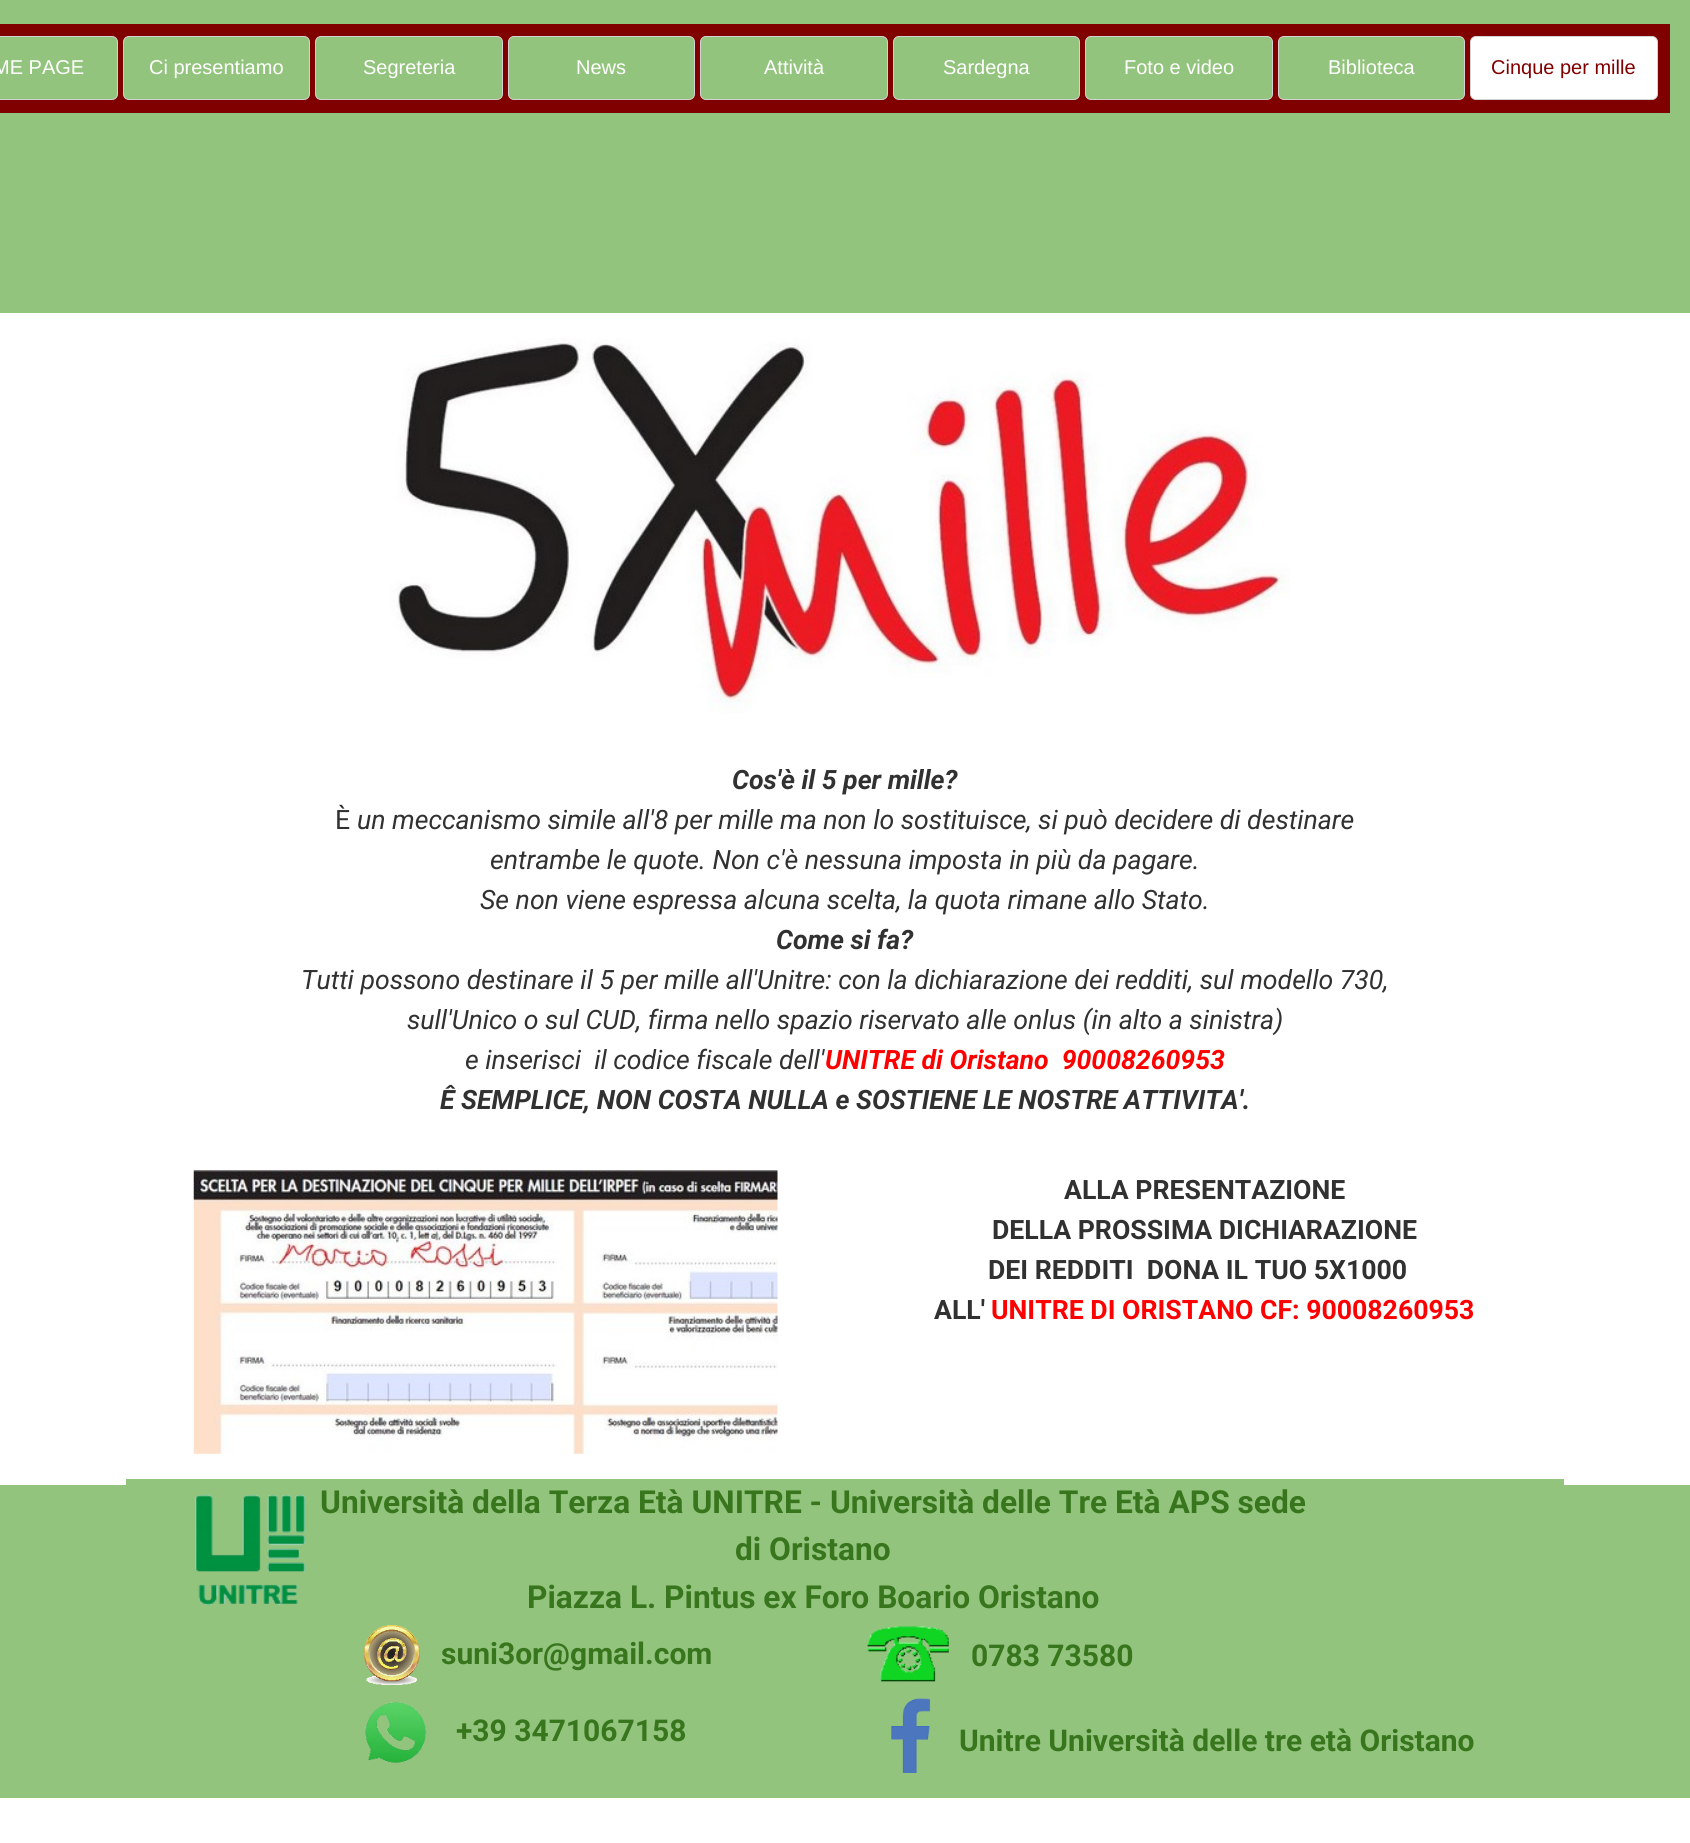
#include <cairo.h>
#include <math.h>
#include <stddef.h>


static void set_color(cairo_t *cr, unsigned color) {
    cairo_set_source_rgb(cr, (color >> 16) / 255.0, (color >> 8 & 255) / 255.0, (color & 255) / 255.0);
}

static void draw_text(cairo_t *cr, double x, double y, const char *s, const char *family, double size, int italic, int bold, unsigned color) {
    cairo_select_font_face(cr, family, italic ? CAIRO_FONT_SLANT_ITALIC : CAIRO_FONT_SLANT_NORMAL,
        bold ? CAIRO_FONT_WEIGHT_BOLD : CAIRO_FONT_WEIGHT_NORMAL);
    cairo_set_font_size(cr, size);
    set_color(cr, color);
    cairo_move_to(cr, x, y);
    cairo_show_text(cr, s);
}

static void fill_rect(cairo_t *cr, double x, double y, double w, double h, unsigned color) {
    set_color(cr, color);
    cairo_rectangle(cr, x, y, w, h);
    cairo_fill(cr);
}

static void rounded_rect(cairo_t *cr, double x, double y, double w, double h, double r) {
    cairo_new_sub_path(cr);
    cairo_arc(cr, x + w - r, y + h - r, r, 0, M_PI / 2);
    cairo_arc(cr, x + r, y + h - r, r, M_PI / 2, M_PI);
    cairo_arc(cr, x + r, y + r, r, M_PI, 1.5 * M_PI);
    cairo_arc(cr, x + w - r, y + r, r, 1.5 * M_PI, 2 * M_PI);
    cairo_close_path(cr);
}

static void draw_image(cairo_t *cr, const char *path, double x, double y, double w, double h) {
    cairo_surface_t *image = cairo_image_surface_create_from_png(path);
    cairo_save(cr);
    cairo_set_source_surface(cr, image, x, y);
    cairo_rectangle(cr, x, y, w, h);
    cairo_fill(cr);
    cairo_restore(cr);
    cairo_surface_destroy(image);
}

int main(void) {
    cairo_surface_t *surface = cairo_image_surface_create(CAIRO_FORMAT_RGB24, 1690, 1843);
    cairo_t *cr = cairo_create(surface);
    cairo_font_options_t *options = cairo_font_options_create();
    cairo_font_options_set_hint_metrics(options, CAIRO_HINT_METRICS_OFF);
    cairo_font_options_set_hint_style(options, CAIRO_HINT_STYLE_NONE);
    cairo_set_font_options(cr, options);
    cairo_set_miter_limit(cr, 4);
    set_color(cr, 0xFFFFFF);
    cairo_paint(cr);
    fill_rect(cr, 0, 0, 1690, 313, 0x93C47D);
    fill_rect(cr, 0, 24, 1670, 89, 0x800000);
    set_color(cr, 0x93C47D);
    rounded_rect(cr, -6.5, 36.5, 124, 63, 5.5);
    cairo_fill_preserve(cr);
    set_color(cr, 0xD3D3D3);
    cairo_set_line_width(cr, 1);
    cairo_stroke(cr);
    draw_text(cr, -7, 74, "ME PAGE", "Liberation Sans", 20, 0, 0, 0xFFFFFF);
    set_color(cr, 0x93C47D);
    rounded_rect(cr, 123.5, 36.5, 186, 63, 5.5);
    cairo_fill_preserve(cr);
    set_color(cr, 0xD3D3D3);
    cairo_stroke(cr);
    draw_text(cr, 149, 74, "Ci presentiamo", "Liberation Sans", 20, 0, 0, 0xFFFFFF);
    set_color(cr, 0x93C47D);
    rounded_rect(cr, 315.5, 36.5, 187, 63, 5.5);
    cairo_fill_preserve(cr);
    set_color(cr, 0xD3D3D3);
    cairo_stroke(cr);
    draw_text(cr, 363, 74, "Segreteria", "Liberation Sans", 20, 0, 0, 0xFFFFFF);
    set_color(cr, 0x93C47D);
    rounded_rect(cr, 508.5, 36.5, 186, 63, 5.5);
    cairo_fill_preserve(cr);
    set_color(cr, 0xD3D3D3);
    cairo_stroke(cr);
    draw_text(cr, 576, 74, "News", "Liberation Sans", 20, 0, 0, 0xFFFFFF);
    set_color(cr, 0x93C47D);
    rounded_rect(cr, 700.5, 36.5, 187, 63, 5.5);
    cairo_fill_preserve(cr);
    set_color(cr, 0xD3D3D3);
    cairo_stroke(cr);
    draw_text(cr, 764, 74, "Attività", "Liberation Sans", 20, 0, 0, 0xFFFFFF);
    set_color(cr, 0x93C47D);
    rounded_rect(cr, 893.5, 36.5, 186, 63, 5.5);
    cairo_fill_preserve(cr);
    set_color(cr, 0xD3D3D3);
    cairo_stroke(cr);
    draw_text(cr, 943, 74, "Sardegna", "Liberation Sans", 20, 0, 0, 0xFFFFFF);
    set_color(cr, 0x93C47D);
    rounded_rect(cr, 1085.5, 36.5, 187, 63, 5.5);
    cairo_fill_preserve(cr);
    set_color(cr, 0xD3D3D3);
    cairo_stroke(cr);
    draw_text(cr, 1124, 74, "Foto e video", "Liberation Sans", 20, 0, 0, 0xFFFFFF);
    set_color(cr, 0x93C47D);
    rounded_rect(cr, 1278.5, 36.5, 186, 63, 5.5);
    cairo_fill_preserve(cr);
    set_color(cr, 0xD3D3D3);
    cairo_stroke(cr);
    draw_text(cr, 1328, 74, "Biblioteca", "Liberation Sans", 20, 0, 0, 0xFFFFFF);
    rounded_rect(cr, 1470.5, 36.5, 187, 63, 5.5);
    cairo_fill_preserve(cr);
    set_color(cr, 0xD3D3D3);
    cairo_stroke(cr);
    draw_text(cr, 1491, 74, "Cinque per mille", "Liberation Sans", 20, 0, 0, 0x800000);
    draw_image(cr, "assets/img1.png", 390, 338, 900, 376);
    draw_text(cr, 732, 789, "Cos'è il 5 per mille?", "Roboto", 26.65, 1, 1, 0x323131);
    draw_text(cr, 335, 829, "È", "Roboto", 26.65, 0, 0, 0x323131);
    draw_text(cr, 357, 829, "un meccanismo simile all'8 per mille ma non lo sostituisce, si può decidere di destinare", "Roboto", 26.65, 1, 0, 0x323131);
    draw_text(cr, 490, 869, "entrambe le quote. Non c'è nessuna imposta in più da pagare.", "Roboto", 26.65, 1, 0, 0x323131);
    draw_text(cr, 480, 909, "Se non viene espressa alcuna scelta, la quota rimane allo Stato.", "Roboto", 26.65, 1, 0, 0x323131);
    draw_text(cr, 776, 949, "Come si fa?", "Roboto", 26.65, 1, 1, 0x323131);
    draw_text(cr, 301, 989, "Tutti possono destinare il 5 per mille all'Unitre: con la dichiarazione dei redditi, sul modello 730,", "Roboto", 26.65, 1, 0, 0x323131);
    draw_text(cr, 407, 1029, "sull'Unico o sul CUD, firma nello spazio riservato alle onlus (in alto a sinistra)", "Roboto", 26.65, 1, 0, 0x323131);
    draw_text(cr, 465, 1069, "e inserisci  il codice fiscale dell'", "Roboto", 26.65, 1, 0, 0x323131);
    draw_text(cr, 825, 1069, "UNITRE di Oristano  90008260953", "Roboto", 26.65, 1, 1, 0xFF0000);
    draw_text(cr, 440, 1109, "Ê SEMPLICE, NON COSTA NULLA e SOSTIENE LE NOSTRE ATTIVITA'.", "Roboto", 26.65, 1, 1, 0x323131);
    draw_image(cr, "assets/img2.png", 193, 1170, 585, 284);
    draw_text(cr, 1064, 1199, "ALLA PRESENTAZIONE", "Roboto", 26.65, 0, 1, 0x323131);
    draw_text(cr, 992, 1239, "DELLA PROSSIMA DICHIARAZIONE", "Roboto", 26.65, 0, 1, 0x323131);
    draw_text(cr, 988, 1279, "DEI REDDITI  DONA IL TUO 5X1000", "Roboto", 26.65, 0, 1, 0x323131);
    draw_text(cr, 934, 1319, "ALL'", "Roboto", 26.65, 0, 1, 0x323131);
    draw_text(cr, 991, 1319, "UNITRE DI ORISTANO CF: 90008260953", "Roboto", 26.65, 0, 1, 0xFF0000);
    fill_rect(cr, 126, 1479, 1438, 6, 0x93C47D);
    fill_rect(cr, 0, 1485, 1690, 313, 0x93C47D);
    draw_image(cr, "assets/img3.png", 195, 1495, 111, 111);
    draw_text(cr, 320, 1513, "Università della Terza Età UNITRE - Università delle Tre Età APS sede", "Roboto", 31.7, 0, 1, 0x38761D);
    draw_text(cr, 735, 1560, "di Oristano", "Roboto", 31.7, 0, 1, 0x38761D);
    draw_text(cr, 527, 1608, "Piazza L. Pintus ex Foro Boario Oristano", "Roboto", 31.7, 0, 1, 0x38761D);
    draw_image(cr, "assets/img4.png", 363, 1625, 57, 60);
    draw_text(cr, 441, 1664, "suni3or@gmail.com", "Roboto", 30, 0, 1, 0x38761D);
    draw_image(cr, "assets/img5.png", 867, 1626, 82, 56);
    draw_text(cr, 971, 1666, "0783 73580", "Roboto", 30, 0, 1, 0x38761D);
    draw_image(cr, "assets/img6.png", 365, 1702, 62, 61);
    draw_text(cr, 456, 1741, "+39 3471067158", "Roboto", 30, 0, 1, 0x38761D);
    draw_image(cr, "assets/img7.png", 891, 1698, 40, 75);
    draw_text(cr, 959, 1751, "Unitre Università delle tre età Oristano", "Roboto", 30, 0, 1, 0x38761D);
    cairo_surface_write_to_png(surface, "output.png");
    cairo_font_options_destroy(options);
    cairo_destroy(cr);
    cairo_surface_destroy(surface);
    return 0;
}
